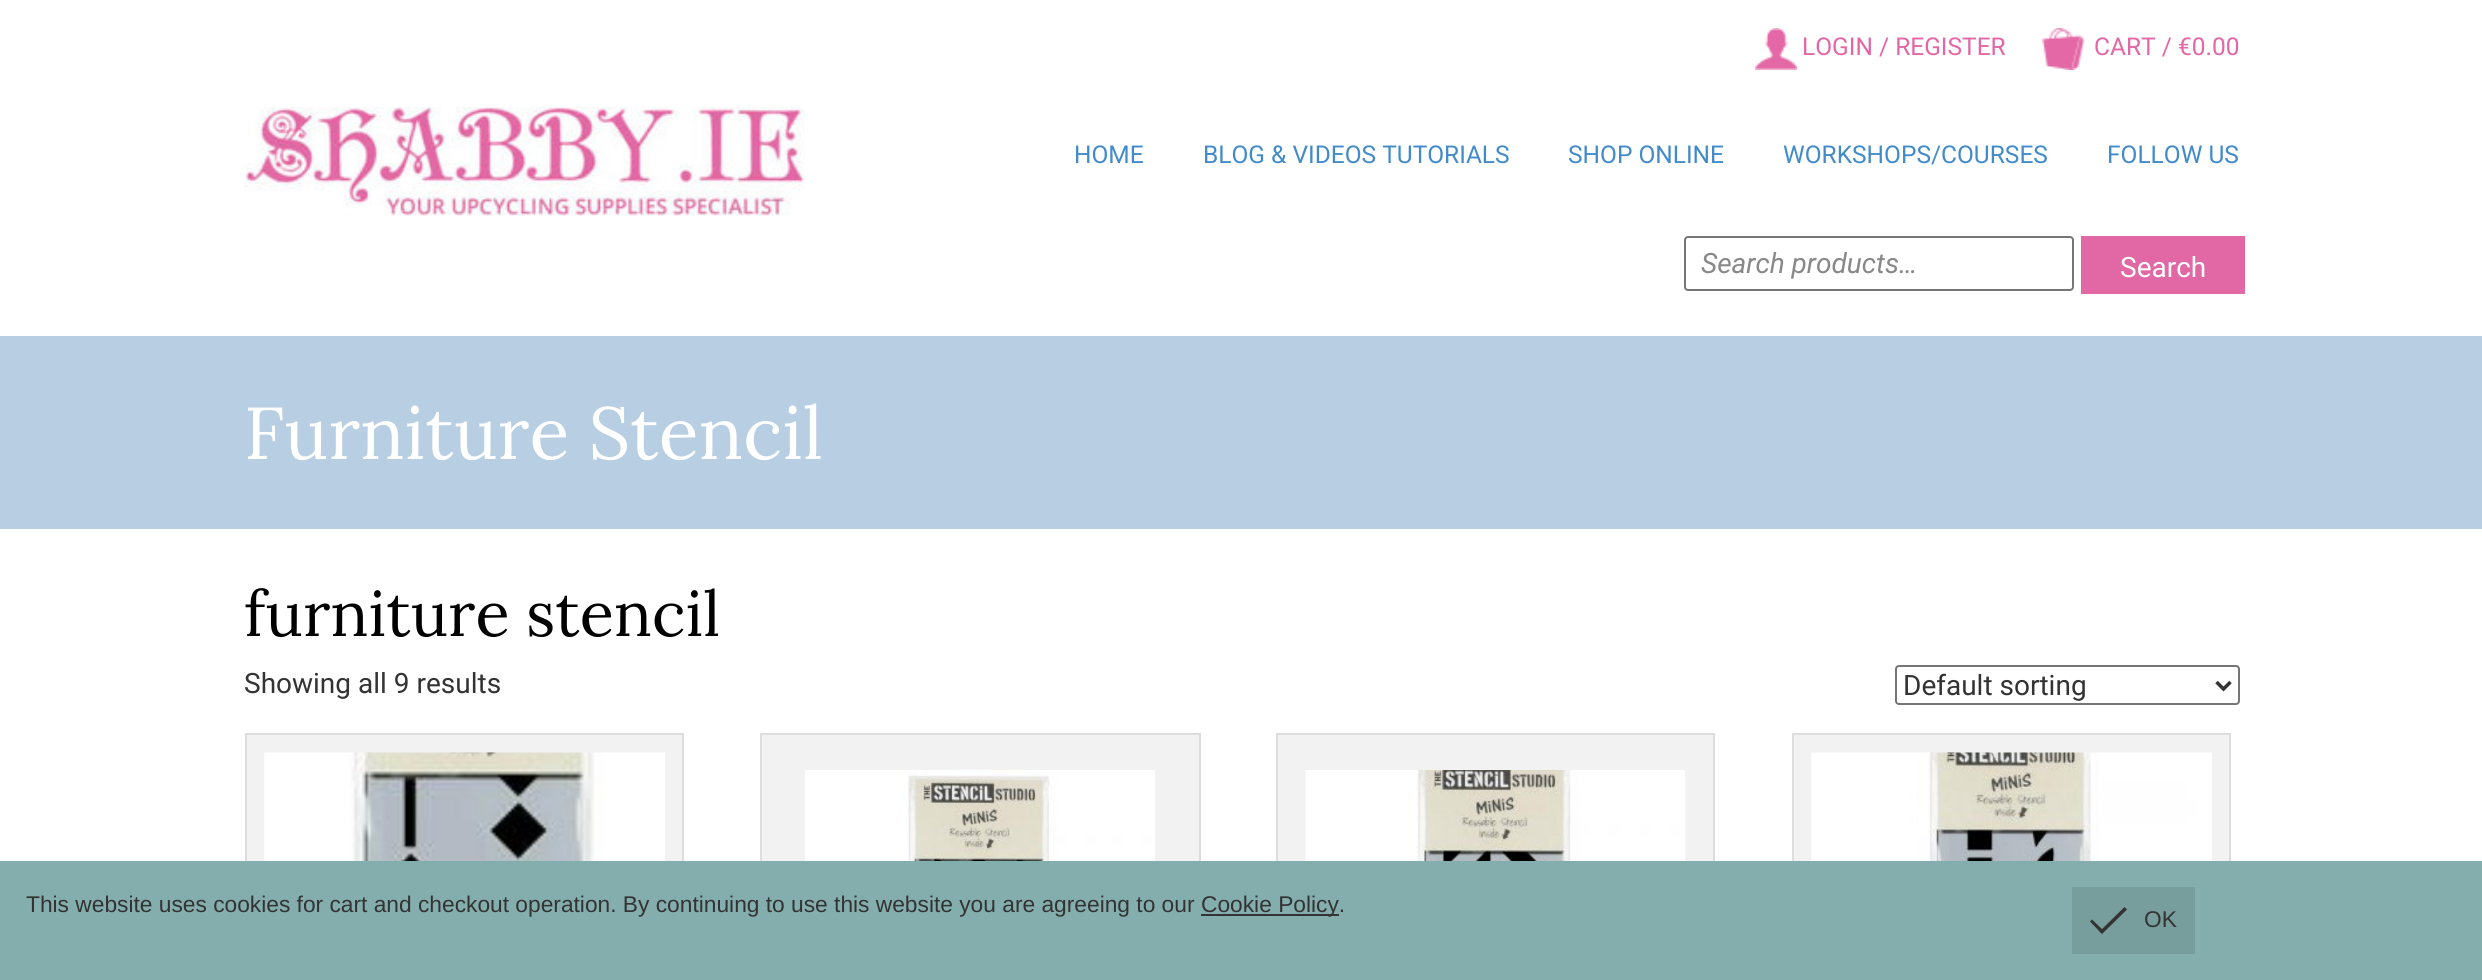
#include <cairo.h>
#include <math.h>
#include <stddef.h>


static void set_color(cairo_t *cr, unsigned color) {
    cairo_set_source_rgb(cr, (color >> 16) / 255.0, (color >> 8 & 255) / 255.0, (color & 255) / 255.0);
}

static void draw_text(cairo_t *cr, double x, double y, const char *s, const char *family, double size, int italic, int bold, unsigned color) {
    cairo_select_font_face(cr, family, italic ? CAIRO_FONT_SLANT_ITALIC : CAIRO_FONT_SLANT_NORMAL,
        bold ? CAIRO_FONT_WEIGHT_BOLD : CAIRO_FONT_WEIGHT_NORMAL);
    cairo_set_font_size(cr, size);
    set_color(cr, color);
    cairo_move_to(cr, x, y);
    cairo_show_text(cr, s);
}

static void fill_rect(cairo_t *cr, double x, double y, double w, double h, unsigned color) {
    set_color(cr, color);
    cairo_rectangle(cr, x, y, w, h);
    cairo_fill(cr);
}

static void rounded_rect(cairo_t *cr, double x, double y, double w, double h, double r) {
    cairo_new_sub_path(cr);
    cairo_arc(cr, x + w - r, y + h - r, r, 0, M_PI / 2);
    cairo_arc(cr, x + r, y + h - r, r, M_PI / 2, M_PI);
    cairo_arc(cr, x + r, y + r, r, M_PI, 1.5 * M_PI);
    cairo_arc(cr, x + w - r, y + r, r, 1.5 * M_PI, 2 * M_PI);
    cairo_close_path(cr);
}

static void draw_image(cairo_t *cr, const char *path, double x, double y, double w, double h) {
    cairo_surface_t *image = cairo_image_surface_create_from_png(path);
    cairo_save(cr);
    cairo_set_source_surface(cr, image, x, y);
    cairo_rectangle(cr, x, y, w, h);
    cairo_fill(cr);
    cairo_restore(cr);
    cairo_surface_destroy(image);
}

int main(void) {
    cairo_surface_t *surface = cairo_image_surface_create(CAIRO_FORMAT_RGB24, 2482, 980);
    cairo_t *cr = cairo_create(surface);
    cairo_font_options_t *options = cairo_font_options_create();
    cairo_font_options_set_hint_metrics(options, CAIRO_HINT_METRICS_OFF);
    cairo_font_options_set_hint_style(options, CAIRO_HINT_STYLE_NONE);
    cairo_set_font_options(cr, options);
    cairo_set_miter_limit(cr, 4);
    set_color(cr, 0xFFFFFF);
    cairo_paint(cr);
    draw_image(cr, "assets/img1.png", 1755, 28, 43, 42);
    draw_text(cr, 1802, 55, "LOGIN / REGISTER", "Roboto", 24.5, 0, 0, 0xE367A5);
    draw_image(cr, "assets/img2.png", 2042, 28, 43, 42);
    draw_text(cr, 2094, 55, "CART / €0.00", "Roboto", 24.5, 0, 0, 0xE367A5);
    draw_image(cr, "assets/img3.png", 245, 106, 560, 110);
    draw_text(cr, 1074, 163, "HOME", "Roboto", 24.5, 0, 0, 0x428BCA);
    draw_text(cr, 1203, 163, "BLOG & VIDEOS TUTORIALS", "Roboto", 24.5, 0, 0, 0x428BCA);
    draw_text(cr, 1568, 163, "SHOP ONLINE", "Roboto", 24.5, 0, 0, 0x428BCA);
    draw_text(cr, 1783, 163, "WORKSHOPS/COURSES", "Roboto", 24.5, 0, 0, 0x428BCA);
    draw_text(cr, 2107, 163, "FOLLOW US", "Roboto", 24.5, 0, 0, 0x428BCA);
    rounded_rect(cr, 1685, 237, 388, 53, 3);
    set_color(cr, 0x767676);
    cairo_stroke(cr);
    draw_text(cr, 1701, 273, "Search products…", "Roboto", 28, 1, 0, 0x888888);
    fill_rect(cr, 2081, 236, 164, 58, 0xE268A5);
    draw_text(cr, 2120, 277, "Search", "Roboto", 28, 0, 0, 0xFFFFFF);
    fill_rect(cr, 0, 336, 2482, 193, 0xB8CEE3);
    draw_text(cr, 244, 459, "Furniture Stencil", "Lora", 73.5, 0, 0, 0xFFFFFF);
    draw_text(cr, 244, 636, "furniture stencil", "Lora", 63, 0, 0, 0x000000);
    draw_text(cr, 244, 693, "Showing all 9 results", "Roboto", 28, 0, 0, 0x333333);
    rounded_rect(cr, 1896, 666, 343, 38, 3);
    set_color(cr, 0x767676);
    cairo_stroke(cr);
    cairo_new_path(cr);
    cairo_move_to(cr, 2216.5, 682);
    cairo_line_to(cr, 2223.5, 689);
    cairo_line_to(cr, 2230.5, 682);
    set_color(cr, 0x333333);
    cairo_set_line_width(cr, 3.5);
    cairo_stroke(cr);
    draw_text(cr, 1903, 695, "Default sorting", "Roboto", 28, 0, 0, 0x333333);
    fill_rect(cr, 247, 735, 435, 126, 0xF2F2F2);
    cairo_rectangle(cr, 246, 734, 437, 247);
    set_color(cr, 0xDDDDDD);
    cairo_set_line_width(cr, 2);
    cairo_stroke(cr);
    draw_image(cr, "assets/img4.png", 264, 752, 401, 109);
    fill_rect(cr, 762, 735, 437, 126, 0xF2F2F2);
    cairo_rectangle(cr, 761, 734, 439, 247);
    set_color(cr, 0xDDDDDD);
    cairo_stroke(cr);
    draw_image(cr, "assets/img5.png", 805, 770, 350, 91);
    fill_rect(cr, 1278, 735, 435, 126, 0xF2F2F2);
    cairo_rectangle(cr, 1277, 734, 437, 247);
    set_color(cr, 0xDDDDDD);
    cairo_stroke(cr);
    draw_image(cr, "assets/img6.png", 1305, 770, 380, 91);
    fill_rect(cr, 1794, 735, 435, 126, 0xF2F2F2);
    cairo_rectangle(cr, 1793, 734, 437, 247);
    set_color(cr, 0xDDDDDD);
    cairo_stroke(cr);
    draw_image(cr, "assets/img7.png", 1811, 752, 401, 109);
    fill_rect(cr, 0, 861, 2482, 119, 0x84AEAE);
    draw_text(cr, 26, 912, "This website uses cookies for cart and checkout operation. By continuing to use this website you are agreeing to our", "Liberation Sans", 22.75, 0, 0, 0x333333);
    fill_rect(cr, 1201, 914, 138, 2, 0x333333);
    draw_text(cr, 1201, 912, "Cookie Policy.", "Liberation Sans", 22.75, 0, 0, 0x333333);
    fill_rect(cr, 2072, 887, 123, 67, 0x779D9D);
    set_color(cr, 0x333333);
    cairo_new_path(cr);
    cairo_move_to(cr, 2099.5, 931.5);
    cairo_line_to(cr, 2124.5, 907);
    cairo_line_to(cr, 2127, 909.5);
    cairo_line_to(cr, 2102, 934);
    cairo_close_path(cr);
    cairo_fill(cr);
    cairo_new_path(cr);
    cairo_move_to(cr, 2090, 921.5);
    cairo_line_to(cr, 2092, 919.5);
    cairo_line_to(cr, 2103.5, 930.5);
    cairo_line_to(cr, 2101, 933);
    cairo_close_path(cr);
    cairo_fill(cr);
    draw_text(cr, 2144, 927, "OK", "Liberation Sans", 22.75, 0, 0, 0x333333);
    cairo_surface_write_to_png(surface, "output.png");
    cairo_font_options_destroy(options);
    cairo_destroy(cr);
    cairo_surface_destroy(surface);
    return 0;
}
